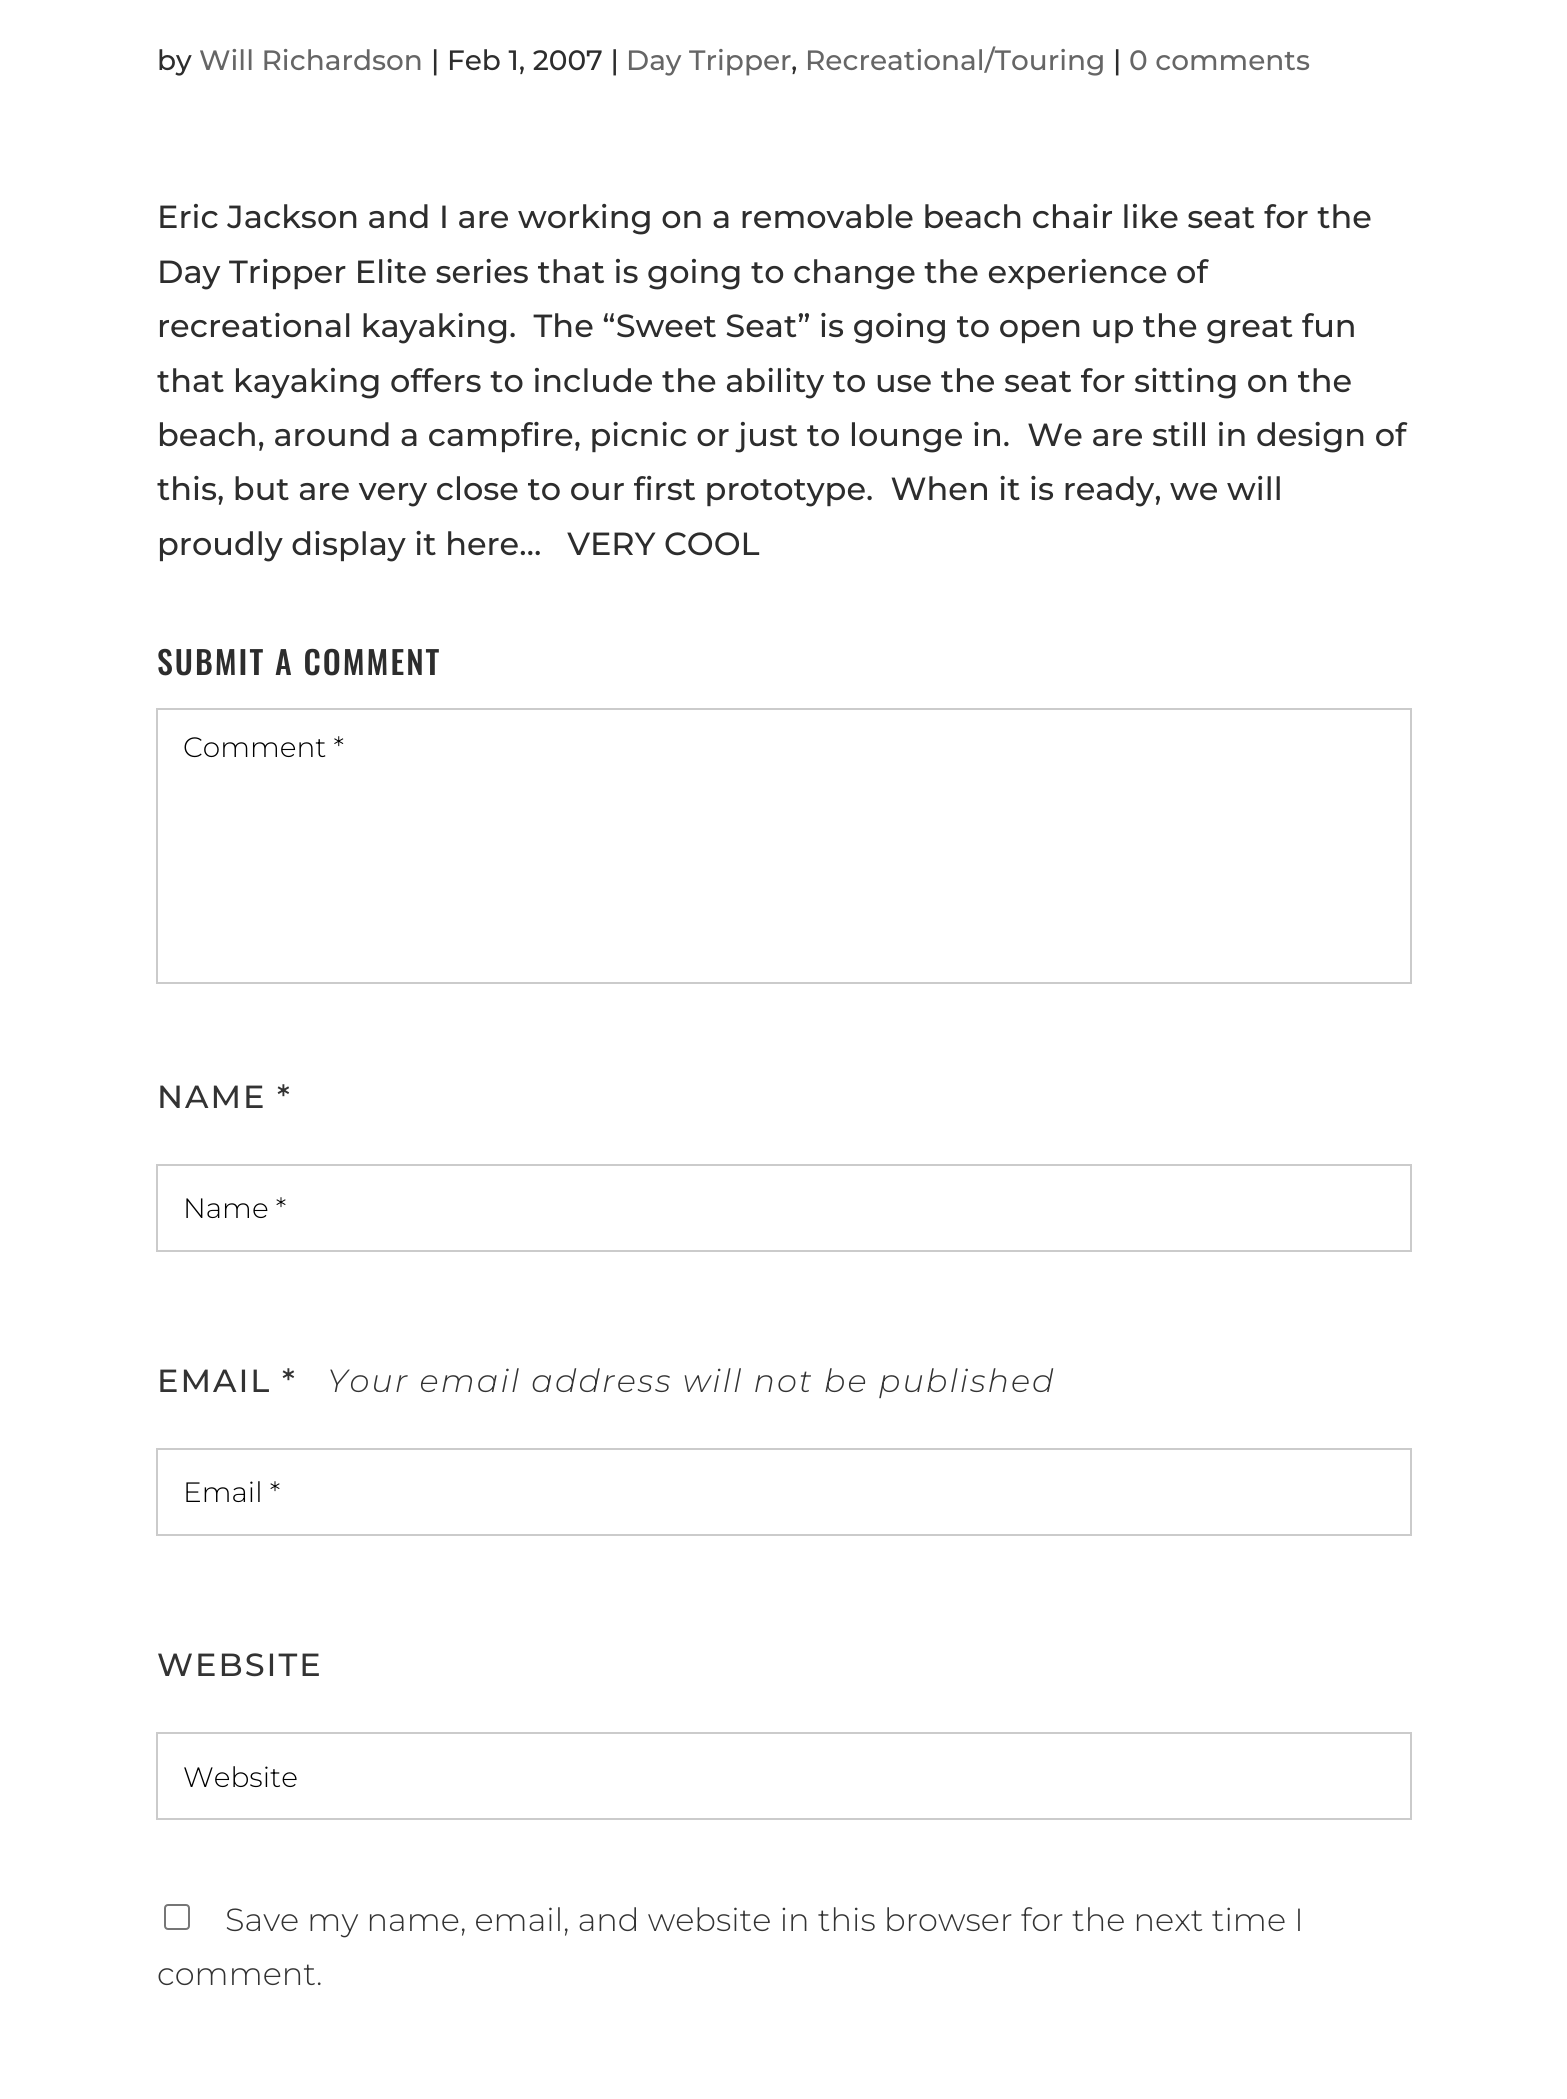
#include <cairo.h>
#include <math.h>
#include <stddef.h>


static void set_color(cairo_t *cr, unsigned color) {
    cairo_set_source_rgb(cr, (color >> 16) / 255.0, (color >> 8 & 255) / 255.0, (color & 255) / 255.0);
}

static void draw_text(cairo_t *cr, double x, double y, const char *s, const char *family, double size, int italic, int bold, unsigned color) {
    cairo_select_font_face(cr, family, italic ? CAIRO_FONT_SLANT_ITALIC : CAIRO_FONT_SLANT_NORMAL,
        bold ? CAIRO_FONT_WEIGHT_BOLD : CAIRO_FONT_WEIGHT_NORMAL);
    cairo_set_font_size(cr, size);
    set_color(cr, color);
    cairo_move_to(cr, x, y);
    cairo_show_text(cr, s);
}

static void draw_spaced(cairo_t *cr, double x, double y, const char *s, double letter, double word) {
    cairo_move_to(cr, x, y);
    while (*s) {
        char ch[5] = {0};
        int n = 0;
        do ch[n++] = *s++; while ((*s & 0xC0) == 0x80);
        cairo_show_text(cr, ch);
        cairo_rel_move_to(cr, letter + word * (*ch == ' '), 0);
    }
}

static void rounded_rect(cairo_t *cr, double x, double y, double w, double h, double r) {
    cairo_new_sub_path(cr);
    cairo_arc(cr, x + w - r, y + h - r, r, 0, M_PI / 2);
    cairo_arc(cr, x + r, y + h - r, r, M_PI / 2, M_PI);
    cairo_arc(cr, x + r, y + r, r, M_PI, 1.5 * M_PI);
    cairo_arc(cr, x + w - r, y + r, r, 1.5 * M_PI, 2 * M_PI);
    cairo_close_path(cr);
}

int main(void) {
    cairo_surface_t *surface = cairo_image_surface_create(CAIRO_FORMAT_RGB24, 1567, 2099);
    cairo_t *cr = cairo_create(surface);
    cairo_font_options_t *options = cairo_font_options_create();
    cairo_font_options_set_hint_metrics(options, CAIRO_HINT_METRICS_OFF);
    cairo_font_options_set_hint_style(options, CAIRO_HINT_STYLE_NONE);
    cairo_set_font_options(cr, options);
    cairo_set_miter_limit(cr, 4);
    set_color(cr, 0xFFFFFF);
    cairo_paint(cr);
    draw_text(cr, 157, 70, "by", "Montserrat Thin", 28, 0, 0, 0x2D2D2D);
    draw_text(cr, 199, 70, "Will Richardson", "Montserrat Thin", 28, 0, 0, 0x666666);
    draw_text(cr, 431, 70, "| Feb 1, 2007 |", "Montserrat Thin", 28, 0, 0, 0x2D2D2D);
    draw_text(cr, 626, 70, "Day Tripper", "Montserrat Thin", 28, 0, 0, 0x666666);
    draw_text(cr, 791, 70, ",", "Montserrat Thin", 28, 0, 0, 0x2D2D2D);
    draw_text(cr, 805, 70, "Recreational/Touring", "Montserrat Thin", 28, 0, 0, 0x666666);
    draw_text(cr, 1113, 70, "|", "Montserrat Thin", 28, 0, 0, 0x2D2D2D);
    draw_text(cr, 1129, 70, "0 comments", "Montserrat Thin", 28, 0, 0, 0x666666);
    draw_text(cr, 157, 228, "Eric Jackson and I are working on a removable beach chair like seat for the", "Montserrat Thin", 32, 0, 0, 0x2D2D2D);
    draw_text(cr, 157, 283, "Day Tripper Elite series that is going to change the experience of", "Montserrat Thin", 32, 0, 0, 0x2D2D2D);
    draw_text(cr, 157, 337, "recreational kayaking.  The “Sweet Seat” is going to open up the great fun", "Montserrat Thin", 32, 0, 0, 0x2D2D2D);
    draw_text(cr, 157, 392, "that kayaking offers to include the ability to use the seat for sitting on the", "Montserrat Thin", 32, 0, 0, 0x2D2D2D);
    draw_text(cr, 157, 446, "beach, around a campfire, picnic or just to lounge in.  We are still in design of", "Montserrat Thin", 32, 0, 0, 0x2D2D2D);
    draw_text(cr, 157, 500, "this, but are very close to our first prototype.  When it is ready, we will", "Montserrat Thin", 32, 0, 0, 0x2D2D2D);
    draw_text(cr, 157, 555, "proudly display it here…   VERY COOL", "Montserrat Thin", 32, 0, 0, 0x2D2D2D);
    cairo_select_font_face(cr, "Oswald Medium", CAIRO_FONT_SLANT_NORMAL, CAIRO_FONT_WEIGHT_NORMAL);
    draw_spaced(cr, 157, 675, "SUBMIT A COMMENT", 2, 0);
    cairo_rectangle(cr, 157, 709, 1254, 274);
    set_color(cr, 0xCBCBCB);
    cairo_stroke(cr);
    draw_text(cr, 183, 757, "Comment *", "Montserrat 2 Thin", 28, 0, 0, 0x000000);
    cairo_select_font_face(cr, "Montserrat Thin", CAIRO_FONT_SLANT_NORMAL, CAIRO_FONT_WEIGHT_NORMAL);
    cairo_set_font_size(cr, 32);
    set_color(cr, 0x333333);
    draw_spaced(cr, 157, 1108, "NAME *", 2, 0);
    cairo_rectangle(cr, 157, 1165, 1254, 86);
    set_color(cr, 0xCBCBCB);
    cairo_stroke(cr);
    draw_text(cr, 183, 1218, "Name *", "Montserrat 2 Thin", 28, 0, 0, 0x000000);
    cairo_select_font_face(cr, "Montserrat Thin", CAIRO_FONT_SLANT_NORMAL, CAIRO_FONT_WEIGHT_NORMAL);
    cairo_set_font_size(cr, 32);
    set_color(cr, 0x333333);
    draw_spaced(cr, 157, 1392, "EMAIL *", 2, 0);
    cairo_select_font_face(cr, "Montserrat Thin", CAIRO_FONT_SLANT_ITALIC, CAIRO_FONT_WEIGHT_NORMAL);
    draw_spaced(cr, 327, 1392, "Your email address will not be published", 2, 0);
    cairo_rectangle(cr, 157, 1449, 1254, 86);
    set_color(cr, 0xCBCBCB);
    cairo_stroke(cr);
    draw_text(cr, 183, 1502, "Email *", "Montserrat 2 Thin", 28, 0, 0, 0x000000);
    cairo_select_font_face(cr, "Montserrat Thin", CAIRO_FONT_SLANT_NORMAL, CAIRO_FONT_WEIGHT_NORMAL);
    cairo_set_font_size(cr, 32);
    set_color(cr, 0x333333);
    draw_spaced(cr, 157, 1676, "WEBSITE", 2, 0);
    cairo_rectangle(cr, 157, 1733, 1254, 86);
    set_color(cr, 0xCBCBCB);
    cairo_stroke(cr);
    draw_text(cr, 183, 1787, "Website", "Montserrat 2 Thin", 28, 0, 0, 0x000000);
    rounded_rect(cr, 165, 1905, 24, 24, 3);
    set_color(cr, 0x767676);
    cairo_stroke(cr);
    draw_text(cr, 225, 1931, "Save my name, email, and website in this browser for the next time I", "Montserrat 2 Thin", 32, 0, 0, 0x333333);
    draw_text(cr, 157, 1985, "comment.", "Montserrat 2 Thin", 32, 0, 0, 0x333333);
    cairo_surface_write_to_png(surface, "output.png");
    cairo_font_options_destroy(options);
    cairo_destroy(cr);
    cairo_surface_destroy(surface);
    return 0;
}
